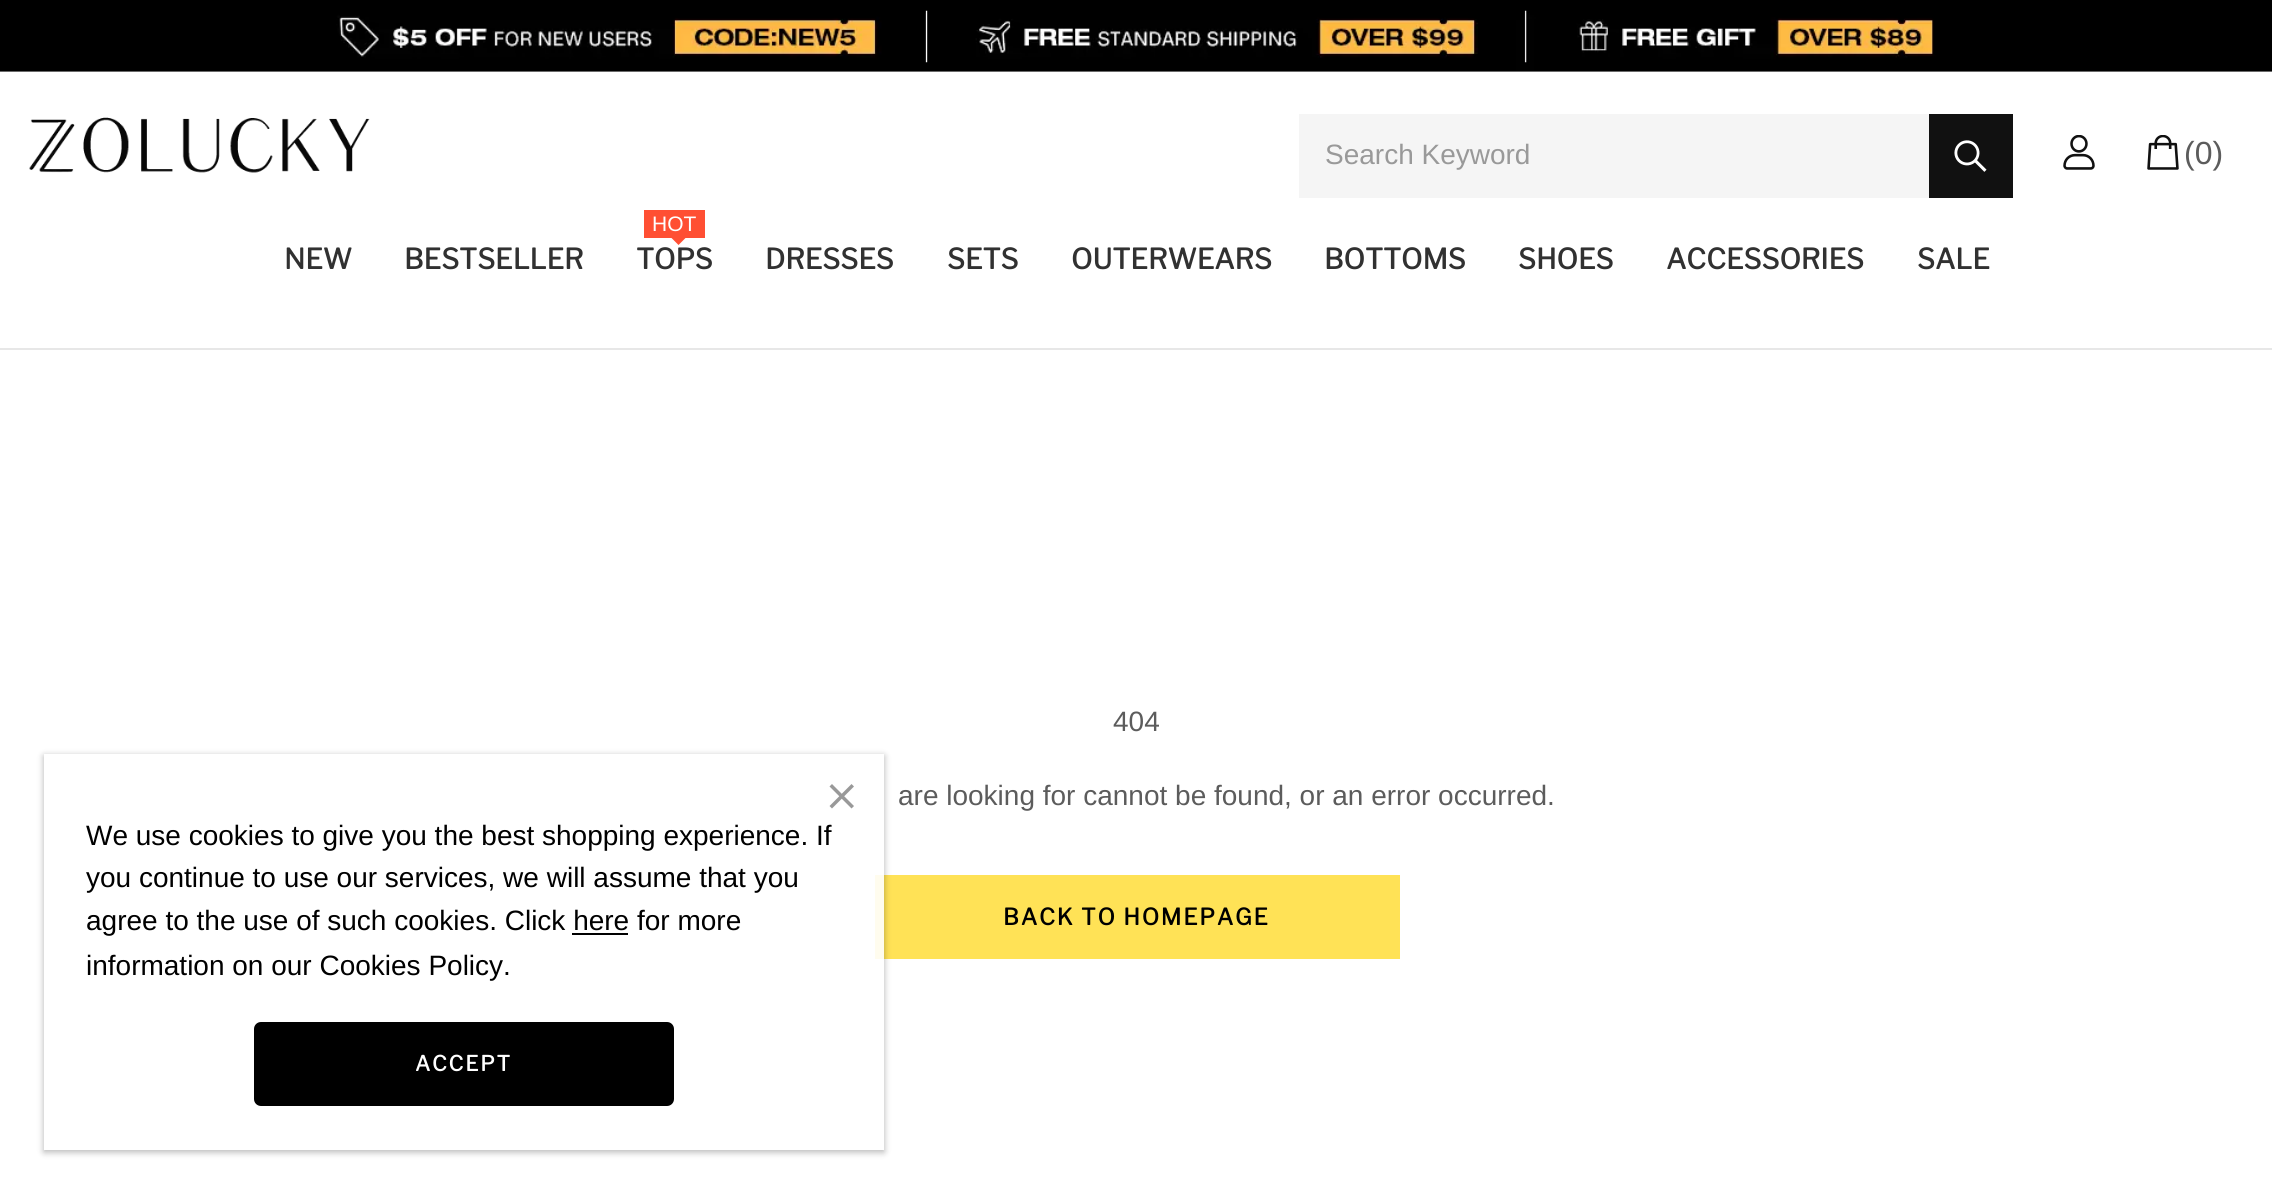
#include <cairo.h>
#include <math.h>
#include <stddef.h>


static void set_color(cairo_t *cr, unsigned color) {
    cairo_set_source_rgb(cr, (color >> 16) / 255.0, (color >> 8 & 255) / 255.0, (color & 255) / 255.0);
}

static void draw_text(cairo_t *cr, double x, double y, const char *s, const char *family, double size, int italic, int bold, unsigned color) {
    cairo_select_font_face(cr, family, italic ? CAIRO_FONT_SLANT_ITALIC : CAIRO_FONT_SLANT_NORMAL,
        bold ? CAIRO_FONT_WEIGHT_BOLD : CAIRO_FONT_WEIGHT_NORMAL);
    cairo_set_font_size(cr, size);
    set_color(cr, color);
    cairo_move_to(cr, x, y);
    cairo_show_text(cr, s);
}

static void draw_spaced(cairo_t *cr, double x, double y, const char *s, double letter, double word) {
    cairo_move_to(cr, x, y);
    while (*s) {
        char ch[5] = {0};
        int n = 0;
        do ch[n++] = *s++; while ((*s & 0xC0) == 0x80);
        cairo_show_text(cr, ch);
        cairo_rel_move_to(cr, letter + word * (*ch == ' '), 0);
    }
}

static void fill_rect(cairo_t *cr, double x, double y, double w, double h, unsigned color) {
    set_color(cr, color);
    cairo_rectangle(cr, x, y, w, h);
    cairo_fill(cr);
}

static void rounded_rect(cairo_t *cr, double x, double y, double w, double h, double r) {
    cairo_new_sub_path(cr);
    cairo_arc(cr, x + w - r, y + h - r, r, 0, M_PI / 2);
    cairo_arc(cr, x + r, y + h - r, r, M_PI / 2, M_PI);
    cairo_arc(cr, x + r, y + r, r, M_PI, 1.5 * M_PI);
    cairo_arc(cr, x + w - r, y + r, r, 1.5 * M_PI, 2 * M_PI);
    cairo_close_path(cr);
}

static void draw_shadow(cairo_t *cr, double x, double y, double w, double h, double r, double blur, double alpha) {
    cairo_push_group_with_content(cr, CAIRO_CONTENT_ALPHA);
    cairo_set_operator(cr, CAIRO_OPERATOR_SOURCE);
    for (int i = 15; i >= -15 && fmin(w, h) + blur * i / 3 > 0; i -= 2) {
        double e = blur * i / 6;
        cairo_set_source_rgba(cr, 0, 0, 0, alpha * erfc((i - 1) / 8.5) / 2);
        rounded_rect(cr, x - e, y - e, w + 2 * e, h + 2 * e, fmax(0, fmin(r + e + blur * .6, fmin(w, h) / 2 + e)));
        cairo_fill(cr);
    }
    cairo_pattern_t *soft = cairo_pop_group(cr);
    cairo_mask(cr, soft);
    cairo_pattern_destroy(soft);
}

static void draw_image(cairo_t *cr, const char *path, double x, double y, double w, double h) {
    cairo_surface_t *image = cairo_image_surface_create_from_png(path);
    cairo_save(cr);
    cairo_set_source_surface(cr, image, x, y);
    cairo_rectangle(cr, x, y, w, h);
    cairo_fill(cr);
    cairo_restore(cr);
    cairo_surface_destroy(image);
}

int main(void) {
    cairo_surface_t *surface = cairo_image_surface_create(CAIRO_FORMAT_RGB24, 2272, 1192);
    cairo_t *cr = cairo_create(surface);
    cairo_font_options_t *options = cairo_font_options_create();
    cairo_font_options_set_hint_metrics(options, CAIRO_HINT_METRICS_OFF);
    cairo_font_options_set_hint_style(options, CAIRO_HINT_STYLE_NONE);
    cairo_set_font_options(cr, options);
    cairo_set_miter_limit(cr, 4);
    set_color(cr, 0xFFFFFF);
    cairo_paint(cr);
    fill_rect(cr, 0, 71, 2272, 1, 0xF3F3F3);
    draw_image(cr, "assets/img1.png", 0, 0, 2272, 72);
    fill_rect(cr, 0, 348, 2272, 2, 0xE7E7E7);
    draw_image(cr, "assets/img2.png", 29, 117, 341, 56);
    fill_rect(cr, 1299, 114, 630, 84, 0xF5F5F5);
    draw_text(cr, 1325, 164, "Search Keyword", "Liberation Sans", 28, 0, 0, 0x999999);
    fill_rect(cr, 1929, 114, 84, 84, 0x111111);
    draw_image(cr, "assets/img3.png", 1954, 140, 33, 32);
    draw_image(cr, "assets/img4.png", 2063, 135, 32, 35);
    draw_image(cr, "assets/img5.png", 2147, 135, 32, 35);
    draw_text(cr, 2184, 164, "(0)", "Liberation Sans", 32, 0, 0, 0x5C5C5C);
    draw_text(cr, 284, 269, "NEW", "Libre Franklin", 28, 0, 1, 0x313131);
    draw_text(cr, 404, 269, "BESTSELLER", "Libre Franklin", 28, 0, 1, 0x313131);
    fill_rect(cr, 644, 210, 61, 28, 0xFF4F33);
    draw_text(cr, 652, 231, "HOT", "Liberation Sans", 21, 0, 0, 0xFFFFFF);
    set_color(cr, 0xFF4F33);
    cairo_new_path(cr);
    cairo_move_to(cr, 671.5, 238);
    cairo_line_to(cr, 685.5, 238);
    cairo_line_to(cr, 678.5, 245);
    cairo_close_path(cr);
    cairo_fill(cr);
    draw_text(cr, 636, 269, "TOPS", "Libre Franklin", 28, 0, 1, 0x313131);
    draw_text(cr, 765, 269, "DRESSES", "Libre Franklin", 28, 0, 1, 0x313131);
    draw_text(cr, 947, 269, "SETS", "Libre Franklin", 28, 0, 1, 0x313131);
    draw_text(cr, 1071, 269, "OUTERWEARS", "Libre Franklin", 28, 0, 1, 0x313131);
    draw_text(cr, 1324, 269, "BOTTOMS", "Libre Franklin", 28, 0, 1, 0x313131);
    draw_text(cr, 1518, 269, "SHOES", "Libre Franklin", 28, 0, 1, 0x313131);
    draw_text(cr, 1666, 269, "ACCESSORIES", "Libre Franklin", 28, 0, 1, 0x313131);
    draw_text(cr, 1917, 269, "SALE", "Libre Franklin", 28, 0, 1, 0x313131);
    draw_text(cr, 1113, 731, "404", "Liberation Sans", 28, 0, 0, 0x5C5C5C);
    draw_text(cr, 898, 805, "are looking for cannot be found, or an error occurred.", "Liberation Sans", 28, 0, 0, 0x5C5C5C);
    fill_rect(cr, 875, 875, 525, 84, 0xFFE256);
    cairo_select_font_face(cr, "Libre Franklin", CAIRO_FONT_SLANT_NORMAL, CAIRO_FONT_WEIGHT_BOLD);
    cairo_set_font_size(cr, 22.75);
    set_color(cr, 0x000000);
    draw_spaced(cr, 1003, 925, "BACK TO HOMEPAGE", 1.75, 0);
    cairo_save(cr);
    cairo_set_fill_rule(cr, CAIRO_FILL_RULE_EVEN_ODD);
    cairo_new_path(cr);
    cairo_move_to(cr, 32, 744);
    cairo_line_to(cr, 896, 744);
    cairo_line_to(cr, 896, 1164);
    cairo_line_to(cr, 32, 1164);
    cairo_close_path(cr);
    cairo_move_to(cr, 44, 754);
    cairo_line_to(cr, 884, 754);
    cairo_line_to(cr, 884, 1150);
    cairo_line_to(cr, 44, 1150);
    cairo_close_path(cr);
    cairo_clip(cr);
    set_color(cr, 0x000000);
    draw_shadow(cr, 44, 756, 840, 396, 0, 3.5, 0.3);
    cairo_restore(cr);
    cairo_set_source_rgba(cr, 1, 1, 1, 0.9);
    cairo_rectangle(cr, 44, 754, 840, 396);
    cairo_fill(cr);
    draw_image(cr, "assets/img6.png", 829, 784, 25, 25);
    draw_text(cr, 86, 845, "We use cookies to give you the best shopping experience. If", "Liberation Sans", 28, 0, 0, 0x000000);
    draw_text(cr, 86, 887, "you continue to use our services, we will assume that you", "Liberation Sans", 28, 0, 0, 0x000000);
    draw_text(cr, 86, 930, "agree to the use of such cookies. Click here for more", "Liberation Sans", 28, 0, 0, 0x000000);
    fill_rect(cr, 572, 933, 56, 2, 0x000000);
    draw_text(cr, 86, 975, "information on our Cookies Policy.", "Liberation Sans", 28, 0, 0, 0x000000);
    rounded_rect(cr, 254, 1022, 420, 84, 7);
    cairo_fill(cr);
    cairo_select_font_face(cr, "Libre Franklin", CAIRO_FONT_SLANT_NORMAL, CAIRO_FONT_WEIGHT_BOLD);
    cairo_set_font_size(cr, 21);
    set_color(cr, 0xFFFFFF);
    draw_spaced(cr, 415, 1071, "ACCEPT", 1.75, 0);
    cairo_surface_write_to_png(surface, "output.png");
    cairo_font_options_destroy(options);
    cairo_destroy(cr);
    cairo_surface_destroy(surface);
    return 0;
}
